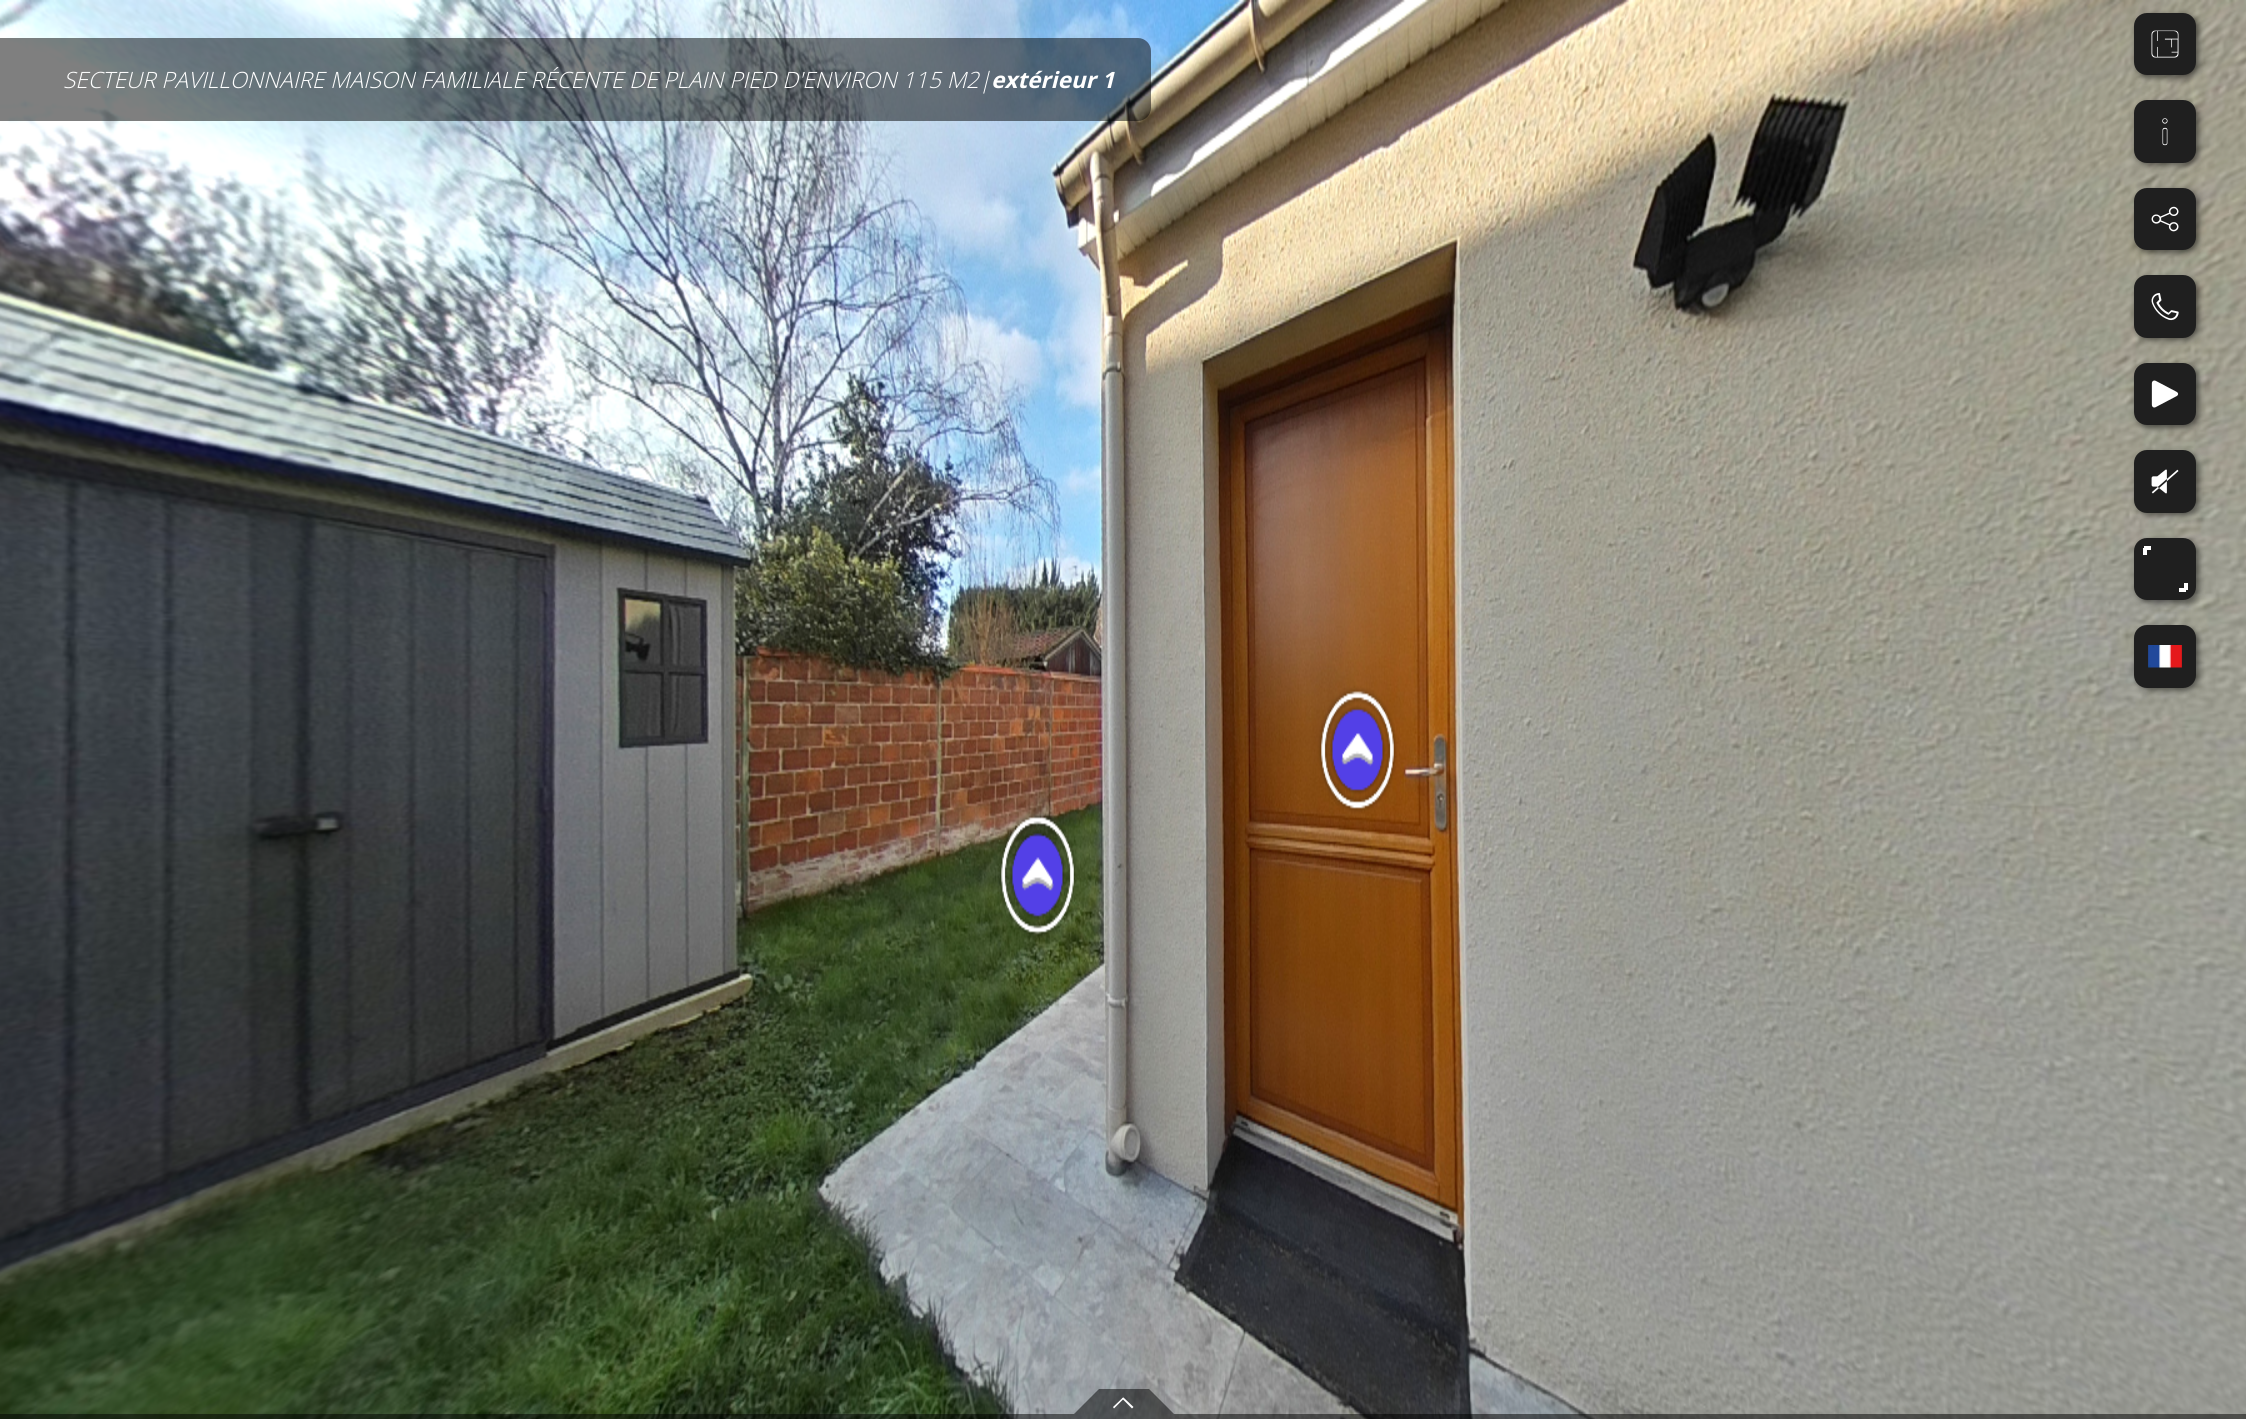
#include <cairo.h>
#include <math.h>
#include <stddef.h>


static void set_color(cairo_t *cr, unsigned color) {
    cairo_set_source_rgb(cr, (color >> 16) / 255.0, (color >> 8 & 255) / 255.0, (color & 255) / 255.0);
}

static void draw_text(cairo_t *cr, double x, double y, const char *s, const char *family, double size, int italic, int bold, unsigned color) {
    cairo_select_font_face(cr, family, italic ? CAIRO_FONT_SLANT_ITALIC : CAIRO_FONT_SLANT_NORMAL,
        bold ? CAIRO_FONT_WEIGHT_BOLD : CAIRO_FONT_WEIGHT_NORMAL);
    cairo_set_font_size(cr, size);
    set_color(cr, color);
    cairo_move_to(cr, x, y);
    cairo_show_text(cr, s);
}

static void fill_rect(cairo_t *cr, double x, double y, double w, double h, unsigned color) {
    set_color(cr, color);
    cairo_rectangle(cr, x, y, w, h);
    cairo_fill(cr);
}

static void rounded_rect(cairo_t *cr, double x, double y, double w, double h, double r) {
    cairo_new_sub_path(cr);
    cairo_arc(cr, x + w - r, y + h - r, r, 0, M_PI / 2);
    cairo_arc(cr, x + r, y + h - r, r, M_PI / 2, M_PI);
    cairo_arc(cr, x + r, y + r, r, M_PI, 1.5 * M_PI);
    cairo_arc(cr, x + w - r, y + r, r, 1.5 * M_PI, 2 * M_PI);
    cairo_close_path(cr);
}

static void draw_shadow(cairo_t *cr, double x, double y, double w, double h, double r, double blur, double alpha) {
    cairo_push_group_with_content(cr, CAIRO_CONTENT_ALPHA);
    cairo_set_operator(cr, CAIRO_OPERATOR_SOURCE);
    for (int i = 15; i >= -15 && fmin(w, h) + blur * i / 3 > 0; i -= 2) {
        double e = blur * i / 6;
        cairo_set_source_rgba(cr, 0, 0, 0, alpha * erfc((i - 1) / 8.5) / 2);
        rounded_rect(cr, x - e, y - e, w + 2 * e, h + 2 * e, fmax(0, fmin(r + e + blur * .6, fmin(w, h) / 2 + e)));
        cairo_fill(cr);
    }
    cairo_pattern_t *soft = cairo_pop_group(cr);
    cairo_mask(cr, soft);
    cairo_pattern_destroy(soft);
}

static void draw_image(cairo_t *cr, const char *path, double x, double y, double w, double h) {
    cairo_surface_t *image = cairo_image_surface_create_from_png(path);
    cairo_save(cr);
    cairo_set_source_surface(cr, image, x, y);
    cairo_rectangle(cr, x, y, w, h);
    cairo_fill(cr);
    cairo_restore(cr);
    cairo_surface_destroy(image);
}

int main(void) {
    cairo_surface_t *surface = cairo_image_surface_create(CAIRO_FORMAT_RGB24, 2246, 1419);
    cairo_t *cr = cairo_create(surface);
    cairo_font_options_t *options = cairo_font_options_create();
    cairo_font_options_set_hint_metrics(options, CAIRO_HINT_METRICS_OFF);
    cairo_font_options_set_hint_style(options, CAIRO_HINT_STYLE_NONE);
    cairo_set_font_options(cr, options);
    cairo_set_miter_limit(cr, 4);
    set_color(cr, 0xFFFFFF);
    cairo_paint(cr);
    draw_image(cr, "assets/img1.png", 0, 0, 2246, 1419);
    cairo_set_source_rgba(cr, 0, 0, 0, 0.5);
    cairo_new_path(cr);
    cairo_move_to(cr, 0, 38);
    cairo_line_to(cr, 1138, 38);
    cairo_curve_to(cr, 1145, 38, 1151, 44, 1151, 51);
    cairo_line_to(cr, 1151, 108);
    cairo_curve_to(cr, 1151, 115, 1145, 121, 1138, 121);
    cairo_line_to(cr, 0, 121);
    cairo_close_path(cr);
    cairo_fill(cr);
    draw_text(cr, 63, 88, "SECTEUR PAVILLONNAIRE MAISON FAMILIALE RÉCENTE DE PLAIN PIED D'ENVIRON 115 M2|", "Open Sans Light", 22.5, 1, 0, 0xFFFFFF);
    draw_text(cr, 991, 88, "extérieur 1", "Open Sans", 22.5, 1, 1, 0xFFFFFF);
    set_color(cr, 0x000000);
    draw_shadow(cr, 2136, 15, 63, 63, 13, 3, 0.5);
    set_color(cr, 0x1F1F1F);
    rounded_rect(cr, 2134, 13, 62, 62, 13);
    cairo_fill(cr);
    draw_image(cr, "assets/img2.png", 2151, 30, 28, 28);
    set_color(cr, 0x000000);
    draw_shadow(cr, 2136, 103, 63, 62, 13, 3, 0.5);
    set_color(cr, 0x1F1F1F);
    rounded_rect(cr, 2134, 100, 62, 63, 13);
    cairo_fill(cr);
    draw_image(cr, "assets/img3.png", 2162, 118, 6, 28);
    set_color(cr, 0x000000);
    draw_shadow(cr, 2136, 190, 63, 63, 13, 3, 0.5);
    set_color(cr, 0x1F1F1F);
    rounded_rect(cr, 2134, 188, 62, 62, 13);
    cairo_fill(cr);
    draw_image(cr, "assets/img4.png", 2151, 206, 28, 26);
    set_color(cr, 0x000000);
    draw_shadow(cr, 2136, 278, 63, 62, 13, 3, 0.5);
    set_color(cr, 0x1F1F1F);
    rounded_rect(cr, 2134, 275, 62, 63, 13);
    cairo_fill(cr);
    draw_image(cr, "assets/img5.png", 2151, 293, 28, 28);
    set_color(cr, 0x000000);
    draw_shadow(cr, 2136, 365, 63, 63, 13, 3, 0.5);
    set_color(cr, 0x1F1F1F);
    rounded_rect(cr, 2134, 363, 62, 62, 13);
    cairo_fill(cr);
    draw_image(cr, "assets/img6.png", 2151, 380, 28, 28);
    set_color(cr, 0x000000);
    draw_shadow(cr, 2136, 453, 63, 62, 13, 3, 0.5);
    set_color(cr, 0x1F1F1F);
    rounded_rect(cr, 2134, 450, 62, 63, 13);
    cairo_fill(cr);
    draw_image(cr, "assets/img7.png", 2151, 469, 28, 25);
    set_color(cr, 0x000000);
    draw_shadow(cr, 2136, 540, 63, 63, 13, 3, 0.5);
    set_color(cr, 0x1F1F1F);
    rounded_rect(cr, 2134, 538, 62, 62, 13);
    cairo_fill(cr);
    fill_rect(cr, 2144, 546, 7, 4, 0xFFFFFF);
    fill_rect(cr, 2143, 548, 4, 7, 0xFFFFFF);
    fill_rect(cr, 2179, 588, 7, 4, 0xFFFFFF);
    fill_rect(cr, 2184, 583, 4, 7, 0xFFFFFF);
    set_color(cr, 0x000000);
    draw_shadow(cr, 2136, 628, 63, 62, 13, 3, 0.5);
    set_color(cr, 0x1F1F1F);
    rounded_rect(cr, 2134, 625, 62, 63, 13);
    cairo_fill(cr);
    draw_image(cr, "assets/img8.png", 2148, 645, 34, 23);
    cairo_set_source_rgba(cr, 0, 0, 0, 0.5);
    cairo_rectangle(cr, 0, 1414, 2246, 5);
    cairo_fill(cr);
    cairo_new_path(cr);
    cairo_move_to(cr, 1174, 1414);
    cairo_line_to(cr, 1074, 1414);
    cairo_line_to(cr, 1099, 1389);
    cairo_line_to(cr, 1149, 1389);
    cairo_close_path(cr);
    cairo_fill(cr);
    set_color(cr, 0xFFFFFF);
    cairo_new_path(cr);
    cairo_move_to(cr, 1113, 1407);
    cairo_line_to(cr, 1123, 1397.5);
    cairo_line_to(cr, 1124, 1398.5);
    cairo_line_to(cr, 1114, 1408.5);
    cairo_close_path(cr);
    cairo_fill(cr);
    cairo_new_path(cr);
    cairo_move_to(cr, 1122, 1398.5);
    cairo_line_to(cr, 1123.5, 1397.5);
    cairo_line_to(cr, 1133.5, 1407);
    cairo_line_to(cr, 1132, 1408.5);
    cairo_close_path(cr);
    cairo_fill(cr);
    cairo_surface_write_to_png(surface, "output.png");
    cairo_font_options_destroy(options);
    cairo_destroy(cr);
    cairo_surface_destroy(surface);
    return 0;
}
